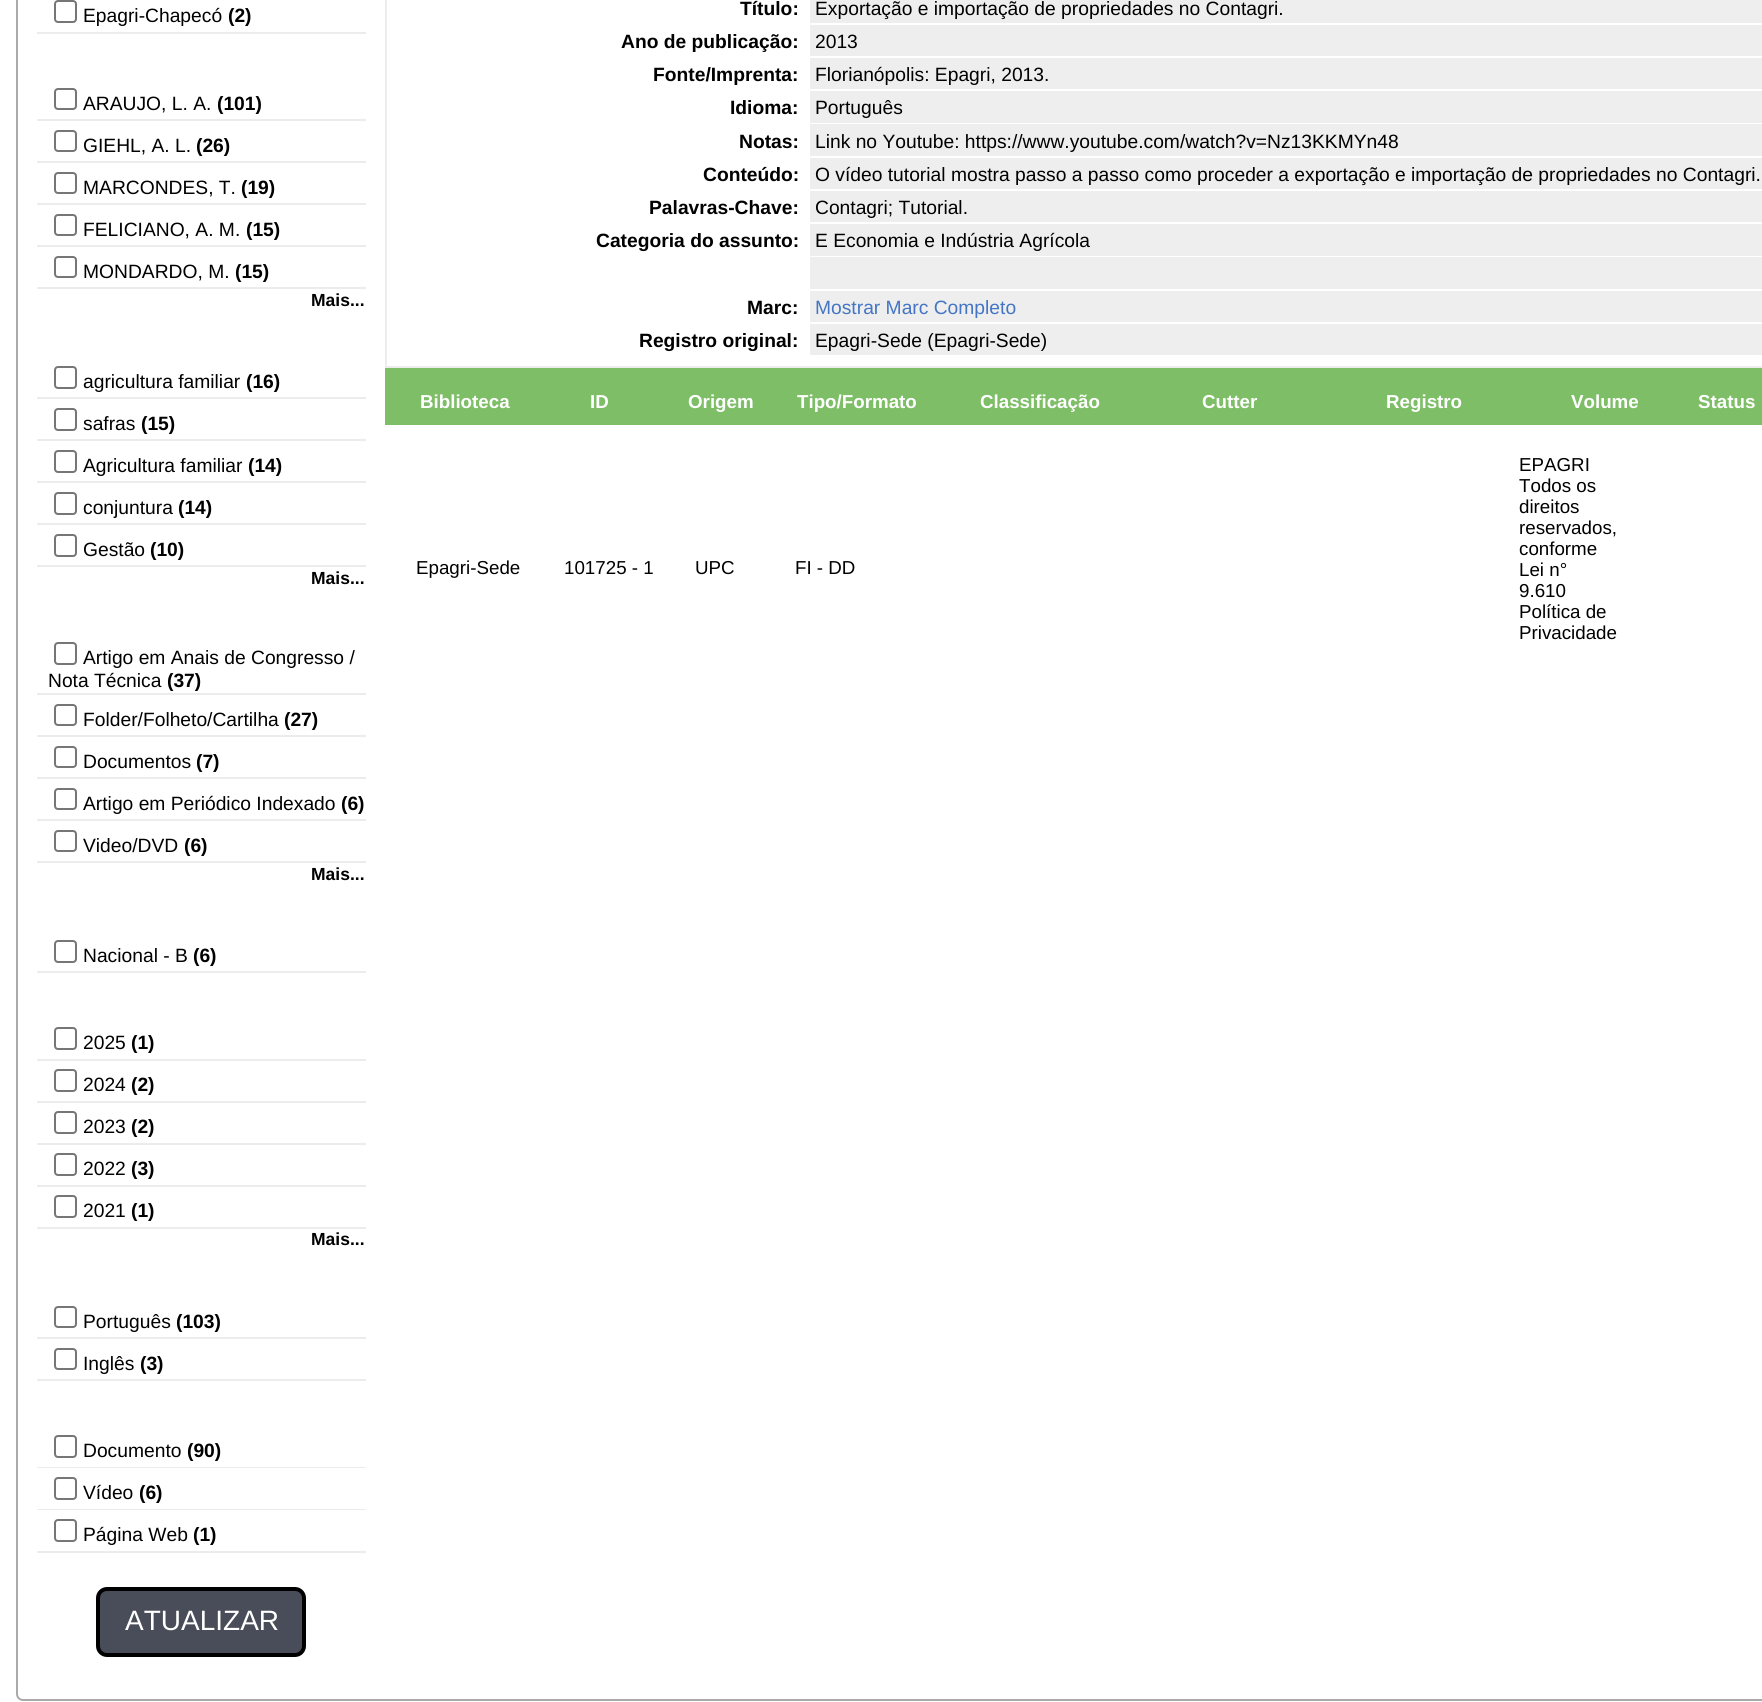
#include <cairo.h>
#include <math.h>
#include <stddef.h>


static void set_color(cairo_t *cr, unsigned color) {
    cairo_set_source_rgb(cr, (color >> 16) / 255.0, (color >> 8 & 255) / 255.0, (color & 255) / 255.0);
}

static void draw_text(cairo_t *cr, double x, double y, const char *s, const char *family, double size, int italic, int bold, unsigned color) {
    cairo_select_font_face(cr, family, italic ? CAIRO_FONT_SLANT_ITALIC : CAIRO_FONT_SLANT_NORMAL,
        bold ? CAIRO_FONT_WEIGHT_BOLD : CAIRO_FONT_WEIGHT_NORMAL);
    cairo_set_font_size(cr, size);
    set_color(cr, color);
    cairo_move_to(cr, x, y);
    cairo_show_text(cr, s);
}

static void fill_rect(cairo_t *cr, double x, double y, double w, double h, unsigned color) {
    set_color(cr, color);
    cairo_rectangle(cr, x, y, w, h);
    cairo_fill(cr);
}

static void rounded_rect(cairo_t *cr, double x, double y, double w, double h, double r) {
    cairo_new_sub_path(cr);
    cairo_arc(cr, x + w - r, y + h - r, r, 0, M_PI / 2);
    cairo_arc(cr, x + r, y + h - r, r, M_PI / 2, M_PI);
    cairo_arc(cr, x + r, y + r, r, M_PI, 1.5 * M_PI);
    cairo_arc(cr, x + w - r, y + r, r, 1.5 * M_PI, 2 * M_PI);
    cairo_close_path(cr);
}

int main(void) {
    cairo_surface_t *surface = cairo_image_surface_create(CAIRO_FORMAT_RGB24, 1762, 1702);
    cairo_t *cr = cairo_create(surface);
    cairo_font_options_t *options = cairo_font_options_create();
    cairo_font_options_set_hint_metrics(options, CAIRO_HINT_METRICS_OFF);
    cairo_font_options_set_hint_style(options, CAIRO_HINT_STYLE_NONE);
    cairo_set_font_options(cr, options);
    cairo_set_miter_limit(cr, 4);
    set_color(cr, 0xFFFFFF);
    cairo_paint(cr);
    rounded_rect(cr, 17, -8, 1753, 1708, 6);
    set_color(cr, 0xAAAAAA);
    cairo_stroke(cr);
    fill_rect(cr, 37, 32, 329, 2, 0xECECEC);
    rounded_rect(cr, 55, 1, 21, 21, 3);
    set_color(cr, 0x767676);
    cairo_stroke(cr);
    draw_text(cr, 83, 22, "Epagri-Chapecó", "Liberation Sans", 19.25, 0, 0, 0x000000);
    draw_text(cr, 228, 22, "(2)", "Liberation Sans", 19.25, 0, 1, 0x000000);
    fill_rect(cr, 37, 119, 329, 2, 0xECECEC);
    rounded_rect(cr, 55, 89, 21, 20, 3);
    set_color(cr, 0x767676);
    cairo_stroke(cr);
    draw_text(cr, 83, 110, "ARAUJO, L. A.", "Liberation Sans", 19.25, 0, 0, 0x000000);
    draw_text(cr, 217, 110, "(101)", "Liberation Sans", 19.25, 0, 1, 0x000000);
    fill_rect(cr, 37, 161, 329, 2, 0xECECEC);
    rounded_rect(cr, 55, 131, 21, 20, 3);
    set_color(cr, 0x767676);
    cairo_stroke(cr);
    draw_text(cr, 83, 152, "GIEHL, A. L.", "Liberation Sans", 19.25, 0, 0, 0x000000);
    draw_text(cr, 196, 152, "(26)", "Liberation Sans", 19.25, 0, 1, 0x000000);
    fill_rect(cr, 37, 203, 329, 2, 0xECECEC);
    rounded_rect(cr, 55, 173, 21, 20, 3);
    set_color(cr, 0x767676);
    cairo_stroke(cr);
    draw_text(cr, 83, 194, "MARCONDES, T.", "Liberation Sans", 19.25, 0, 0, 0x000000);
    draw_text(cr, 241, 194, "(19)", "Liberation Sans", 19.25, 0, 1, 0x000000);
    fill_rect(cr, 37, 245, 329, 2, 0xECECEC);
    rounded_rect(cr, 55, 215, 21, 20, 3);
    set_color(cr, 0x767676);
    cairo_stroke(cr);
    draw_text(cr, 83, 236, "FELICIANO, A. M.", "Liberation Sans", 19.25, 0, 0, 0x000000);
    draw_text(cr, 246, 236, "(15)", "Liberation Sans", 19.25, 0, 1, 0x000000);
    fill_rect(cr, 37, 287, 329, 2, 0xECECEC);
    rounded_rect(cr, 55, 257, 21, 20, 3);
    set_color(cr, 0x767676);
    cairo_stroke(cr);
    draw_text(cr, 83, 278, "MONDARDO, M.", "Liberation Sans", 19.25, 0, 0, 0x000000);
    draw_text(cr, 235, 278, "(15)", "Liberation Sans", 19.25, 0, 1, 0x000000);
    draw_text(cr, 311, 306, "Mais...", "Liberation Sans", 17.5, 0, 1, 0x000000);
    fill_rect(cr, 37, 397, 329, 2, 0xECECEC);
    rounded_rect(cr, 55, 367, 21, 21, 3);
    set_color(cr, 0x767676);
    cairo_stroke(cr);
    draw_text(cr, 83, 388, "agricultura familiar", "Liberation Sans", 19.25, 0, 0, 0x000000);
    draw_text(cr, 246, 388, "(16)", "Liberation Sans", 19.25, 0, 1, 0x000000);
    fill_rect(cr, 37, 439, 329, 2, 0xECECEC);
    rounded_rect(cr, 55, 409, 21, 21, 3);
    set_color(cr, 0x767676);
    cairo_stroke(cr);
    draw_text(cr, 83, 430, "safras", "Liberation Sans", 19.25, 0, 0, 0x000000);
    draw_text(cr, 141, 430, "(15)", "Liberation Sans", 19.25, 0, 1, 0x000000);
    fill_rect(cr, 37, 481, 329, 2, 0xECECEC);
    rounded_rect(cr, 55, 451, 21, 21, 3);
    set_color(cr, 0x767676);
    cairo_stroke(cr);
    draw_text(cr, 83, 472, "Agricultura familiar", "Liberation Sans", 19.25, 0, 0, 0x000000);
    draw_text(cr, 248, 472, "(14)", "Liberation Sans", 19.25, 0, 1, 0x000000);
    fill_rect(cr, 37, 523, 329, 2, 0xECECEC);
    rounded_rect(cr, 55, 493, 21, 21, 3);
    set_color(cr, 0x767676);
    cairo_stroke(cr);
    draw_text(cr, 83, 514, "conjuntura", "Liberation Sans", 19.25, 0, 0, 0x000000);
    draw_text(cr, 178, 514, "(14)", "Liberation Sans", 19.25, 0, 1, 0x000000);
    fill_rect(cr, 37, 565, 329, 2, 0xECECEC);
    rounded_rect(cr, 55, 535, 21, 21, 3);
    set_color(cr, 0x767676);
    cairo_stroke(cr);
    draw_text(cr, 83, 556, "Gestão", "Liberation Sans", 19.25, 0, 0, 0x000000);
    draw_text(cr, 150, 556, "(10)", "Liberation Sans", 19.25, 0, 1, 0x000000);
    draw_text(cr, 311, 584, "Mais...", "Liberation Sans", 17.5, 0, 1, 0x000000);
    fill_rect(cr, 37, 693, 329, 2, 0xECECEC);
    rounded_rect(cr, 55, 643, 21, 21, 3);
    set_color(cr, 0x767676);
    cairo_stroke(cr);
    draw_text(cr, 83, 664, "Artigo em Anais de Congresso /", "Liberation Sans", 19.25, 0, 0, 0x000000);
    draw_text(cr, 48, 687, "Nota Técnica", "Liberation Sans", 19.25, 0, 0, 0x000000);
    draw_text(cr, 167, 687, "(37)", "Liberation Sans", 19.25, 0, 1, 0x000000);
    fill_rect(cr, 37, 735, 329, 2, 0xECECEC);
    rounded_rect(cr, 55, 705, 21, 20, 3);
    set_color(cr, 0x767676);
    cairo_stroke(cr);
    draw_text(cr, 83, 726, "Folder/Folheto/Cartilha", "Liberation Sans", 19.25, 0, 0, 0x000000);
    draw_text(cr, 284, 726, "(27)", "Liberation Sans", 19.25, 0, 1, 0x000000);
    fill_rect(cr, 37, 777, 329, 2, 0xECECEC);
    rounded_rect(cr, 55, 747, 21, 20, 3);
    set_color(cr, 0x767676);
    cairo_stroke(cr);
    draw_text(cr, 83, 768, "Documentos", "Liberation Sans", 19.25, 0, 0, 0x000000);
    draw_text(cr, 196, 768, "(7)", "Liberation Sans", 19.25, 0, 1, 0x000000);
    fill_rect(cr, 37, 819, 329, 2, 0xECECEC);
    rounded_rect(cr, 55, 789, 21, 20, 3);
    set_color(cr, 0x767676);
    cairo_stroke(cr);
    draw_text(cr, 83, 810, "Artigo em Periódico Indexado", "Liberation Sans", 19.25, 0, 0, 0x000000);
    draw_text(cr, 341, 810, "(6)", "Liberation Sans", 19.25, 0, 1, 0x000000);
    fill_rect(cr, 37, 861, 329, 2, 0xECECEC);
    rounded_rect(cr, 55, 831, 21, 20, 3);
    set_color(cr, 0x767676);
    cairo_stroke(cr);
    draw_text(cr, 83, 852, "Video/DVD", "Liberation Sans", 19.25, 0, 0, 0x000000);
    draw_text(cr, 184, 852, "(6)", "Liberation Sans", 19.25, 0, 1, 0x000000);
    draw_text(cr, 311, 880, "Mais...", "Liberation Sans", 17.5, 0, 1, 0x000000);
    fill_rect(cr, 37, 971, 329, 2, 0xECECEC);
    rounded_rect(cr, 55, 941, 21, 21, 3);
    set_color(cr, 0x767676);
    cairo_stroke(cr);
    draw_text(cr, 83, 962, "Nacional - B", "Liberation Sans", 19.25, 0, 0, 0x000000);
    draw_text(cr, 193, 962, "(6)", "Liberation Sans", 19.25, 0, 1, 0x000000);
    fill_rect(cr, 37, 1059, 329, 2, 0xECECEC);
    rounded_rect(cr, 55, 1028, 21, 21, 3);
    set_color(cr, 0x767676);
    cairo_stroke(cr);
    draw_text(cr, 83, 1049, "2025", "Liberation Sans", 19.25, 0, 0, 0x000000);
    draw_text(cr, 131, 1049, "(1)", "Liberation Sans", 19.25, 0, 1, 0x000000);
    fill_rect(cr, 37, 1101, 329, 2, 0xECECEC);
    rounded_rect(cr, 55, 1070, 21, 21, 3);
    set_color(cr, 0x767676);
    cairo_stroke(cr);
    draw_text(cr, 83, 1091, "2024", "Liberation Sans", 19.25, 0, 0, 0x000000);
    draw_text(cr, 131, 1091, "(2)", "Liberation Sans", 19.25, 0, 1, 0x000000);
    fill_rect(cr, 37, 1143, 329, 2, 0xECECEC);
    rounded_rect(cr, 55, 1112, 21, 21, 3);
    set_color(cr, 0x767676);
    cairo_stroke(cr);
    draw_text(cr, 83, 1133, "2023", "Liberation Sans", 19.25, 0, 0, 0x000000);
    draw_text(cr, 131, 1133, "(2)", "Liberation Sans", 19.25, 0, 1, 0x000000);
    fill_rect(cr, 37, 1185, 329, 2, 0xECECEC);
    rounded_rect(cr, 55, 1154, 21, 21, 3);
    set_color(cr, 0x767676);
    cairo_stroke(cr);
    draw_text(cr, 83, 1175, "2022", "Liberation Sans", 19.25, 0, 0, 0x000000);
    draw_text(cr, 131, 1175, "(3)", "Liberation Sans", 19.25, 0, 1, 0x000000);
    fill_rect(cr, 37, 1227, 329, 2, 0xECECEC);
    rounded_rect(cr, 55, 1196, 21, 21, 3);
    set_color(cr, 0x767676);
    cairo_stroke(cr);
    draw_text(cr, 83, 1217, "2021", "Liberation Sans", 19.25, 0, 0, 0x000000);
    draw_text(cr, 131, 1217, "(1)", "Liberation Sans", 19.25, 0, 1, 0x000000);
    draw_text(cr, 311, 1245, "Mais...", "Liberation Sans", 17.5, 0, 1, 0x000000);
    fill_rect(cr, 37, 1337, 329, 2, 0xECECEC);
    rounded_rect(cr, 55, 1307, 21, 20, 3);
    set_color(cr, 0x767676);
    cairo_stroke(cr);
    draw_text(cr, 83, 1328, "Português", "Liberation Sans", 19.25, 0, 0, 0x000000);
    draw_text(cr, 176, 1328, "(103)", "Liberation Sans", 19.25, 0, 1, 0x000000);
    fill_rect(cr, 37, 1379, 329, 2, 0xECECEC);
    rounded_rect(cr, 55, 1349, 21, 20, 3);
    set_color(cr, 0x767676);
    cairo_stroke(cr);
    draw_text(cr, 83, 1370, "Inglês", "Liberation Sans", 19.25, 0, 0, 0x000000);
    draw_text(cr, 140, 1370, "(3)", "Liberation Sans", 19.25, 0, 1, 0x000000);
    fill_rect(cr, 37, 1467, 329, 1, 0xECECEC);
    rounded_rect(cr, 55, 1436, 21, 21, 3);
    set_color(cr, 0x767676);
    cairo_stroke(cr);
    draw_text(cr, 83, 1457, "Documento", "Liberation Sans", 19.25, 0, 0, 0x000000);
    draw_text(cr, 187, 1457, "(90)", "Liberation Sans", 19.25, 0, 1, 0x000000);
    fill_rect(cr, 37, 1509, 329, 1, 0xECECEC);
    rounded_rect(cr, 55, 1478, 21, 21, 3);
    set_color(cr, 0x767676);
    cairo_stroke(cr);
    draw_text(cr, 83, 1499, "Vídeo", "Liberation Sans", 19.25, 0, 0, 0x000000);
    draw_text(cr, 139, 1499, "(6)", "Liberation Sans", 19.25, 0, 1, 0x000000);
    fill_rect(cr, 37, 1551, 329, 2, 0xECECEC);
    rounded_rect(cr, 55, 1520, 21, 21, 3);
    set_color(cr, 0x767676);
    cairo_stroke(cr);
    draw_text(cr, 83, 1541, "Página Web", "Liberation Sans", 19.25, 0, 0, 0x000000);
    draw_text(cr, 193, 1541, "(1)", "Liberation Sans", 19.25, 0, 1, 0x000000);
    set_color(cr, 0x494D59);
    rounded_rect(cr, 98, 1589, 206, 66, 9);
    cairo_fill_preserve(cr);
    set_color(cr, 0x000000);
    cairo_set_line_width(cr, 4);
    cairo_stroke(cr);
    draw_text(cr, 125, 1630, "ATUALIZAR", "Liberation Sans", 28, 0, 0, 0xFFFFFF);
    cairo_rectangle(cr, 386, -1, 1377, 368);
    set_color(cr, 0xECECEC);
    cairo_set_line_width(cr, 2);
    cairo_stroke(cr);
    draw_text(cr, 740, 15, "Título:", "Liberation Sans", 19.25, 0, 1, 0x000000);
    fill_rect(cr, 810, 0, 952, 23, 0xEEEEEE);
    draw_text(cr, 815, 15, "Exportação e importação de propriedades no Contagri.", "Liberation Sans", 19.25, 0, 0, 0x000000);
    draw_text(cr, 621, 48, "Ano de publicação:", "Liberation Sans", 19.25, 0, 1, 0x000000);
    fill_rect(cr, 810, 25, 952, 31, 0xEEEEEE);
    draw_text(cr, 815, 48, "2013", "Liberation Sans", 19.25, 0, 0, 0x000000);
    draw_text(cr, 653, 81, "Fonte/Imprenta:", "Liberation Sans", 19.25, 0, 1, 0x000000);
    fill_rect(cr, 810, 58, 952, 31, 0xEEEEEE);
    draw_text(cr, 815, 81, "Florianópolis: Epagri, 2013.", "Liberation Sans", 19.25, 0, 0, 0x000000);
    draw_text(cr, 730, 114, "Idioma:", "Liberation Sans", 19.25, 0, 1, 0x000000);
    fill_rect(cr, 810, 91, 952, 32, 0xEEEEEE);
    draw_text(cr, 815, 114, "Português", "Liberation Sans", 19.25, 0, 0, 0x000000);
    draw_text(cr, 739, 148, "Notas:", "Liberation Sans", 19.25, 0, 1, 0x000000);
    fill_rect(cr, 810, 124, 952, 32, 0xEEEEEE);
    draw_text(cr, 815, 148, "Link no Youtube: https://www.youtube.com/watch?v=Nz13KKMYn48", "Liberation Sans", 19.25, 0, 0, 0x000000);
    draw_text(cr, 703, 181, "Conteúdo:", "Liberation Sans", 19.25, 0, 1, 0x000000);
    fill_rect(cr, 810, 158, 952, 31, 0xEEEEEE);
    draw_text(cr, 815, 181, "O vídeo tutorial mostra passo a passo como proceder a exportação e importação de propriedades no Contagri.", "Liberation Sans", 19.25, 0, 0, 0x000000);
    draw_text(cr, 649, 214, "Palavras-Chave:", "Liberation Sans", 19.25, 0, 1, 0x000000);
    fill_rect(cr, 810, 191, 952, 31, 0xEEEEEE);
    draw_text(cr, 815, 214, "Contagri; Tutorial.", "Liberation Sans", 19.25, 0, 0, 0x000000);
    draw_text(cr, 596, 247, "Categoria do assunto:", "Liberation Sans", 19.25, 0, 1, 0x000000);
    fill_rect(cr, 810, 224, 952, 32, 0xEEEEEE);
    draw_text(cr, 815, 247, "E Economia e Indústria Agrícola", "Liberation Sans", 19.25, 0, 0, 0x000000);
    fill_rect(cr, 810, 257, 952, 32, 0xEEEEEE);
    draw_text(cr, 747, 314, "Marc:", "Liberation Sans", 19.25, 0, 1, 0x000000);
    fill_rect(cr, 810, 291, 952, 31, 0xEEEEEE);
    draw_text(cr, 815, 314, "Mostrar Marc Completo", "Liberation Sans", 19.25, 0, 0, 0x4375C4);
    draw_text(cr, 639, 347, "Registro original:", "Liberation Sans", 19.25, 0, 1, 0x000000);
    fill_rect(cr, 810, 324, 952, 31, 0xEEEEEE);
    draw_text(cr, 815, 347, "Epagri-Sede (Epagri-Sede)", "Liberation Sans", 19.25, 0, 0, 0x000000);
    fill_rect(cr, 385, 368, 1377, 57, 0x7DBE67);
    draw_text(cr, 420, 408, "Biblioteca", "Liberation Sans", 18.75, 0, 1, 0xFFFFFF);
    draw_text(cr, 590, 408, "ID", "Liberation Sans", 18.75, 0, 1, 0xFFFFFF);
    draw_text(cr, 688, 408, "Origem", "Liberation Sans", 18.75, 0, 1, 0xFFFFFF);
    draw_text(cr, 797, 408, "Tipo/Formato", "Liberation Sans", 18.75, 0, 1, 0xFFFFFF);
    draw_text(cr, 980, 408, "Classificação", "Liberation Sans", 18.75, 0, 1, 0xFFFFFF);
    draw_text(cr, 1202, 408, "Cutter", "Liberation Sans", 18.75, 0, 1, 0xFFFFFF);
    draw_text(cr, 1386, 408, "Registro", "Liberation Sans", 18.75, 0, 1, 0xFFFFFF);
    draw_text(cr, 1571, 408, "Volume", "Liberation Sans", 18.75, 0, 1, 0xFFFFFF);
    draw_text(cr, 1698, 408, "Status", "Liberation Sans", 18.75, 0, 1, 0xFFFFFF);
    draw_text(cr, 416, 574, "Epagri-Sede", "Liberation Sans", 18.75, 0, 0, 0x000000);
    draw_text(cr, 564, 574, "101725 - 1", "Liberation Sans", 18.75, 0, 0, 0x000000);
    draw_text(cr, 695, 574, "UPC", "Liberation Sans", 18.75, 0, 0, 0x000000);
    draw_text(cr, 795, 574, "FI - DD", "Liberation Sans", 18.75, 0, 0, 0x000000);
    draw_text(cr, 1519, 471, "EPAGRI", "Liberation Sans", 18.75, 0, 0, 0x000000);
    draw_text(cr, 1519, 492, "Todos os", "Liberation Sans", 18.75, 0, 0, 0x000000);
    draw_text(cr, 1519, 513, "direitos", "Liberation Sans", 18.75, 0, 0, 0x000000);
    draw_text(cr, 1519, 534, "reservados,", "Liberation Sans", 18.75, 0, 0, 0x000000);
    draw_text(cr, 1519, 555, "conforme", "Liberation Sans", 18.75, 0, 0, 0x000000);
    draw_text(cr, 1519, 576, "Lei n°", "Liberation Sans", 18.75, 0, 0, 0x000000);
    draw_text(cr, 1519, 597, "9.610", "Liberation Sans", 18.75, 0, 0, 0x000000);
    draw_text(cr, 1519, 618, "Política de", "Liberation Sans", 18.75, 0, 0, 0x000000);
    draw_text(cr, 1519, 639, "Privacidade", "Liberation Sans", 18.75, 0, 0, 0x000000);
    cairo_surface_write_to_png(surface, "output.png");
    cairo_font_options_destroy(options);
    cairo_destroy(cr);
    cairo_surface_destroy(surface);
    return 0;
}
